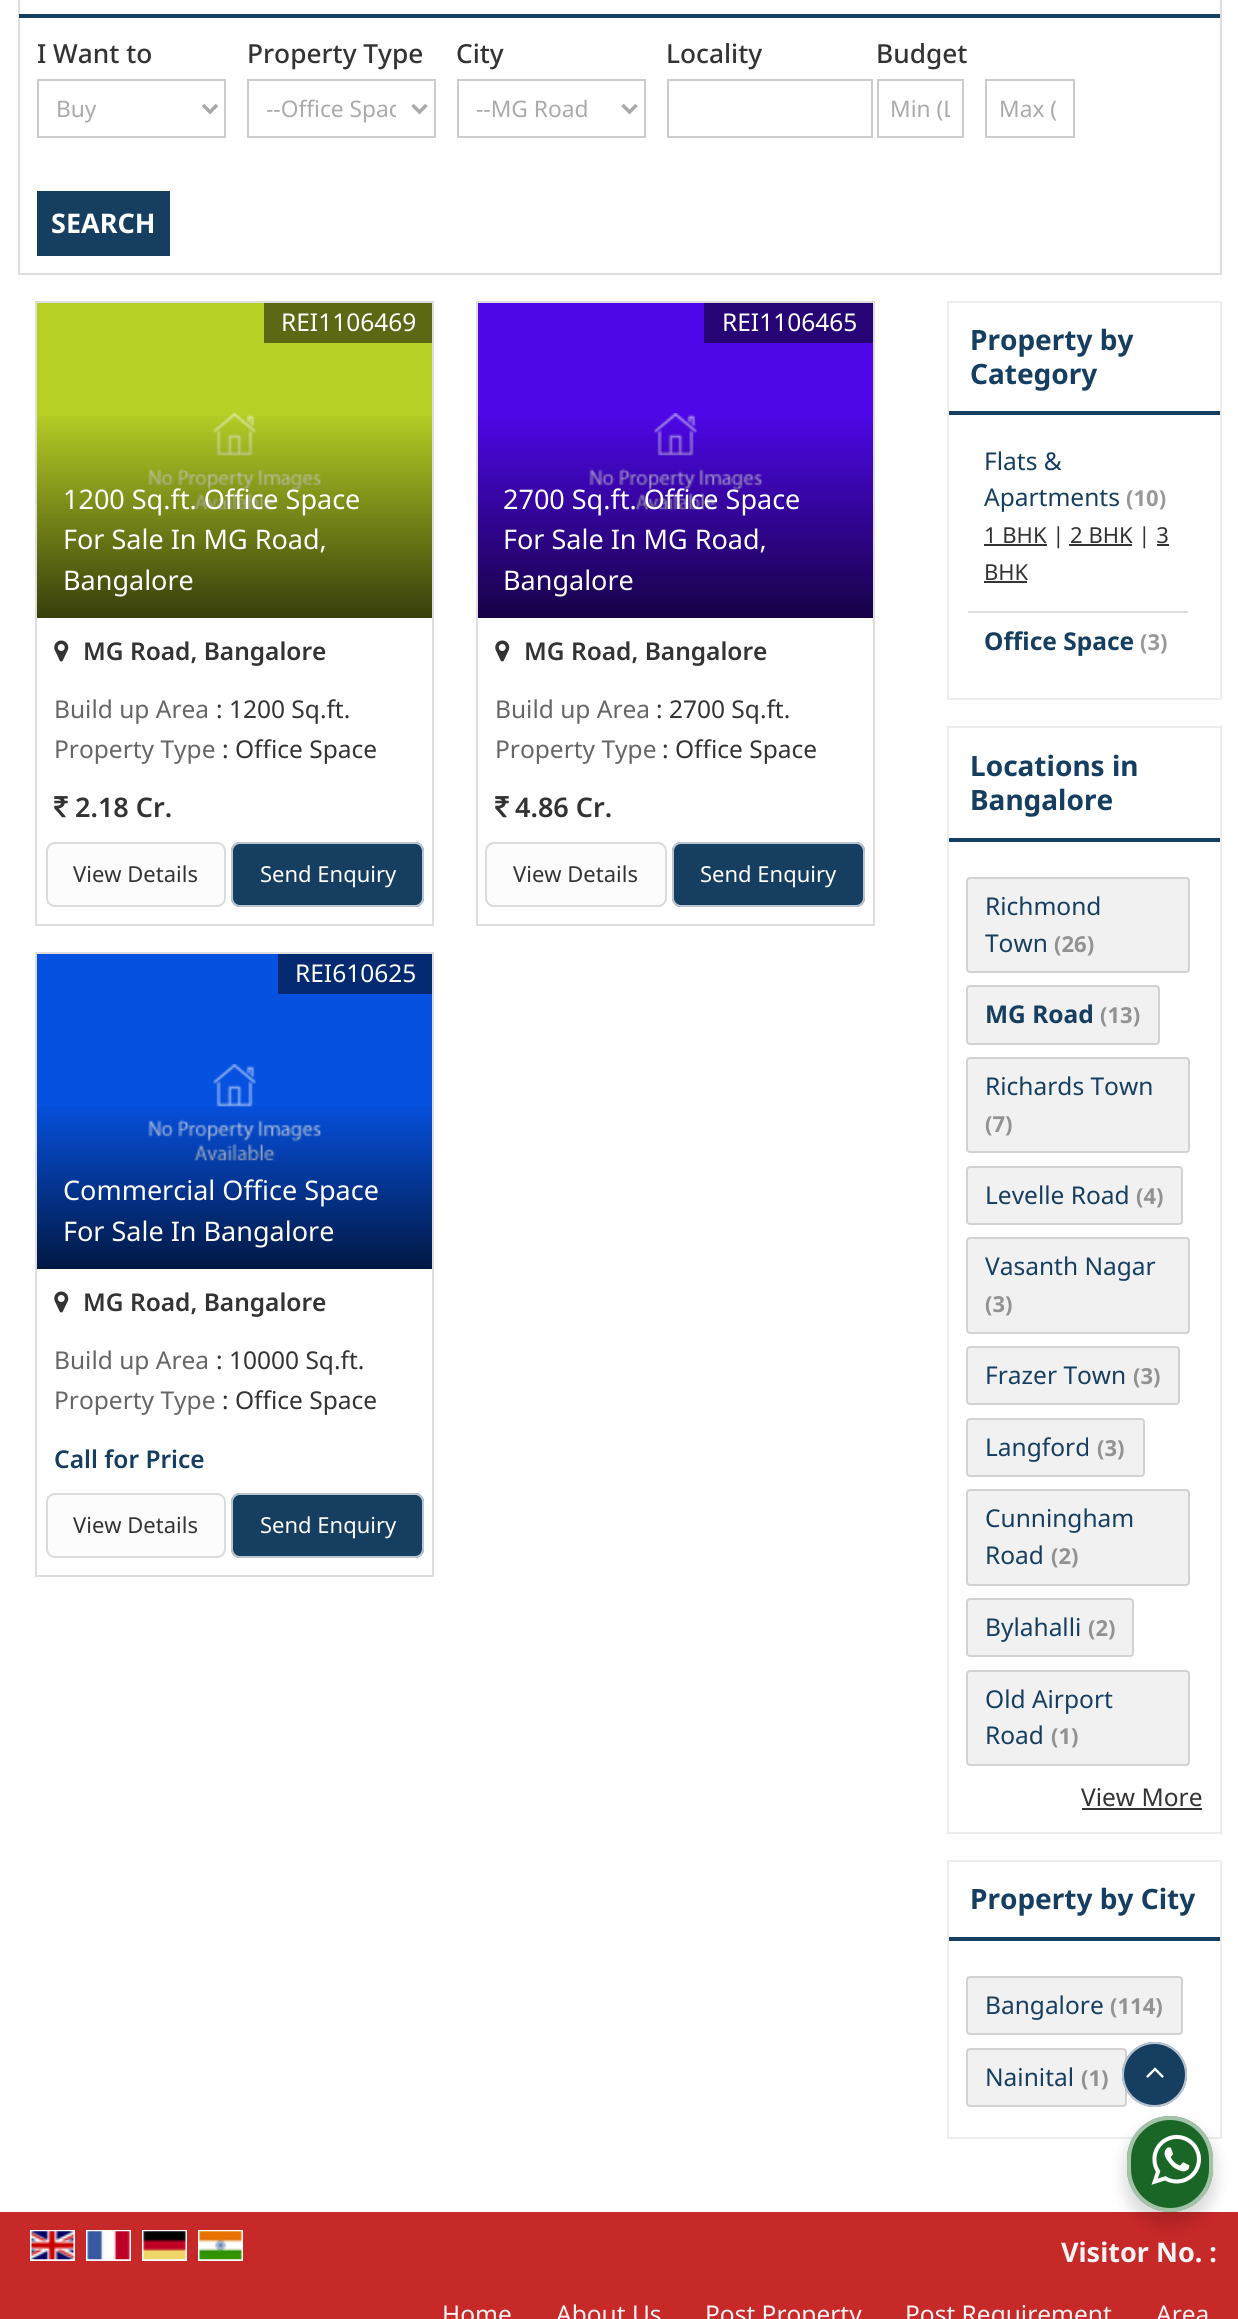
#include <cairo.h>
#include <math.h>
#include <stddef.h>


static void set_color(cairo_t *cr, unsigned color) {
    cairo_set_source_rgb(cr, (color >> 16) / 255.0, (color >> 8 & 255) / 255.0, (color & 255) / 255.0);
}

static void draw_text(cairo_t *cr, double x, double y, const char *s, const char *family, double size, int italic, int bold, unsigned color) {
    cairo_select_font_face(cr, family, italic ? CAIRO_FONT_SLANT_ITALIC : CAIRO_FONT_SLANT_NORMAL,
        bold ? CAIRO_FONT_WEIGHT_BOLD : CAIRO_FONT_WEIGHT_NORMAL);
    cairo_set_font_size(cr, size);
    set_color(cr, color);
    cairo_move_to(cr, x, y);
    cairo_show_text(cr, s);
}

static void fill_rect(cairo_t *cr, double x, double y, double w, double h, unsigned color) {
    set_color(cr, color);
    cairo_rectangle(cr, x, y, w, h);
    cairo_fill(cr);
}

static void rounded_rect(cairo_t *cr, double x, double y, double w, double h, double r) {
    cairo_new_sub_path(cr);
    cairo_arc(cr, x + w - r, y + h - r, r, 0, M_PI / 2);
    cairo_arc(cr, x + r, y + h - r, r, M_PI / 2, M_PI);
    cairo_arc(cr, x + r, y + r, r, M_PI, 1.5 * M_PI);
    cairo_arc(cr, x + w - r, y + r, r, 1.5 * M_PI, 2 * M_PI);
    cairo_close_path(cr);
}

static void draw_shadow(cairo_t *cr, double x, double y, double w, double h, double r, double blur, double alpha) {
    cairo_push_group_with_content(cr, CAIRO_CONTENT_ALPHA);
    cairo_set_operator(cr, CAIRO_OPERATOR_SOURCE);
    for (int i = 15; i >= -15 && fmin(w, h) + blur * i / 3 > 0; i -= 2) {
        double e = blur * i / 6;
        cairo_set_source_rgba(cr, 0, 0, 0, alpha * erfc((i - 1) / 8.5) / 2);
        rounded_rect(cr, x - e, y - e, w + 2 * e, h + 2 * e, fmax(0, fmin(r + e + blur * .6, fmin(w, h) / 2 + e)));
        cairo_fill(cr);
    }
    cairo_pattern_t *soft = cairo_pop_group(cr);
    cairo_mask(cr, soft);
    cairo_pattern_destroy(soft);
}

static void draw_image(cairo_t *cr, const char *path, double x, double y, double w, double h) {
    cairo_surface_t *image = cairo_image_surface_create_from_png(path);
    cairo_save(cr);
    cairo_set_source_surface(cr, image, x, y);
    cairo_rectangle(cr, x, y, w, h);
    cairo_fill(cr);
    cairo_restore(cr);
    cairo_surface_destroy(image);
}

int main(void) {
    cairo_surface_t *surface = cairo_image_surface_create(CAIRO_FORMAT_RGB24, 1238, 2319);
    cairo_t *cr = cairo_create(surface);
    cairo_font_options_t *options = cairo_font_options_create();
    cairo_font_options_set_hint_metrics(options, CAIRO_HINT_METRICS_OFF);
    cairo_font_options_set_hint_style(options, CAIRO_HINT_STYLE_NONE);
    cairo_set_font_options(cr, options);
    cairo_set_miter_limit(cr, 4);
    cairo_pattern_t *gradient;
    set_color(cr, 0xFFFFFF);
    cairo_paint(cr);
    cairo_rectangle(cr, 19, -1, 1202, 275);
    set_color(cr, 0xDEDEDE);
    cairo_stroke(cr);
    fill_rect(cr, 19, 14, 1201, 4, 0x163E61);
    draw_text(cr, 37, 63, "I Want to", "Noto Sans Medium", 26.25, 0, 0, 0x333333);
    cairo_rectangle(cr, 38, 80, 187, 57);
    set_color(cr, 0xCCCCCC);
    cairo_stroke(cr);
    cairo_new_path(cr);
    cairo_move_to(cr, 203, 105);
    cairo_line_to(cr, 210, 112);
    cairo_line_to(cr, 217, 105);
    set_color(cr, 0xAAAAAA);
    cairo_set_line_width(cr, 3.5);
    cairo_stroke(cr);
    draw_text(cr, 56, 117, "Buy", "Noto Sans", 22.75, 0, 0, 0xAAAAAA);
    draw_text(cr, 247, 63, "Property Type", "Noto Sans Medium", 26.25, 0, 0, 0x333333);
    cairo_rectangle(cr, 248, 80, 187, 57);
    set_color(cr, 0xCCCCCC);
    cairo_set_line_width(cr, 2);
    cairo_stroke(cr);
    cairo_new_path(cr);
    cairo_move_to(cr, 412.5, 105);
    cairo_line_to(cr, 419.5, 112);
    cairo_line_to(cr, 426.5, 105);
    set_color(cr, 0xAAAAAA);
    cairo_set_line_width(cr, 3.5);
    cairo_stroke(cr);
    cairo_save(cr);
    cairo_rectangle(cr, 266, 91, 130, 35);
    cairo_clip(cr);
    draw_text(cr, 266, 117, "--Office Spac", "Noto Sans", 22.75, 0, 0, 0xAAAAAA);
    cairo_restore(cr);
    draw_text(cr, 456, 63, "City", "Noto Sans Medium", 26.25, 0, 0, 0x333333);
    cairo_rectangle(cr, 458, 80, 187, 57);
    set_color(cr, 0xCCCCCC);
    cairo_set_line_width(cr, 2);
    cairo_stroke(cr);
    cairo_new_path(cr);
    cairo_move_to(cr, 622.5, 105);
    cairo_line_to(cr, 629.5, 112);
    cairo_line_to(cr, 636.5, 105);
    set_color(cr, 0xAAAAAA);
    cairo_set_line_width(cr, 3.5);
    cairo_stroke(cr);
    draw_text(cr, 476, 117, "--MG Road", "Noto Sans", 22.75, 0, 0, 0xAAAAAA);
    draw_text(cr, 666, 63, "Locality", "Noto Sans Medium", 26.25, 0, 0, 0x333333);
    cairo_rectangle(cr, 668, 80, 204, 57);
    set_color(cr, 0xCCCCCC);
    cairo_set_line_width(cr, 2);
    cairo_stroke(cr);
    draw_text(cr, 876, 63, "Budget", "Noto Sans Medium", 26.25, 0, 0, 0x333333);
    cairo_rectangle(cr, 878, 80, 85, 57);
    set_color(cr, 0xCCCCCC);
    cairo_stroke(cr);
    cairo_save(cr);
    cairo_rectangle(cr, 891, 93, 59, 31);
    cairo_clip(cr);
    draw_text(cr, 890, 117, "Min (L", "Noto Sans", 22.75, 0, 0, 0xAAAAAA);
    cairo_restore(cr);
    cairo_rectangle(cr, 986, 80, 88, 57);
    cairo_stroke(cr);
    draw_text(cr, 999, 117, "Max (", "Noto Sans", 22.75, 0, 0, 0xAAAAAA);
    fill_rect(cr, 37, 191, 133, 65, 0x163E61);
    draw_text(cr, 51, 233, "SEARCH", "Noto Sans", 27, 0, 1, 0xFFFFFF);
    cairo_rectangle(cr, 36, 302, 397, 623);
    set_color(cr, 0xDEDEDE);
    cairo_stroke(cr);
    fill_rect(cr, 37, 303, 395, 315, 0xB8CF25);
    draw_image(cr, "assets/img1.png", 148, 413, 173, 97);
    fill_rect(cr, 264, 303, 168, 40, 0x5C6813);
    draw_text(cr, 281, 331, "REI1106469", "Noto Sans", 24.5, 0, 0, 0xFFFFFF);
    gradient = cairo_pattern_create_linear(235, 410, 235, 618);
    cairo_pattern_add_color_stop_rgba(gradient, 0, 0, 0, 0, 0);
    cairo_pattern_add_color_stop_rgba(gradient, 1, 0, 0, 0, 0.7);
    cairo_set_source(cr, gradient);
    cairo_pattern_destroy(gradient);
    cairo_rectangle(cr, 37, 416, 395, 202);
    cairo_fill(cr);
    draw_text(cr, 63, 509, "1200 Sq.ft. Office Space", "Noto Sans", 27, 0, 0, 0xFFFFFF);
    draw_text(cr, 63, 549, "For Sale In MG Road,", "Noto Sans", 27, 0, 0, 0xFFFFFF);
    draw_text(cr, 63, 590, "Bangalore", "Noto Sans", 27, 0, 0, 0xFFFFFF);
    draw_image(cr, "assets/img2.png", 54, 640, 15, 22);
    draw_text(cr, 83, 660, "MG Road, Bangalore", "Noto Sans SemiBold", 24.5, 0, 0, 0x333333);
    draw_text(cr, 54, 718, "Build up Area", "Noto Sans", 24.5, 0, 0, 0x666666);
    draw_text(cr, 216, 718, ": 1200 Sq.ft.", "Noto Sans", 24.5, 0, 0, 0x333333);
    draw_text(cr, 54, 758, "Property Type", "Noto Sans", 24.5, 0, 0, 0x666666);
    draw_text(cr, 222, 758, ": Office Space", "Noto Sans", 24.5, 0, 0, 0x333333);
    draw_image(cr, "assets/img3.png", 54, 796, 14, 22);
    draw_text(cr, 75, 817, "2.18 Cr.", "Noto Sans SemiBold", 27, 0, 0, 0x333333);
    set_color(cr, 0xFCFCFC);
    rounded_rect(cr, 47, 843, 178, 63, 8);
    cairo_fill_preserve(cr);
    set_color(cr, 0xDBDBDB);
    cairo_stroke(cr);
    draw_text(cr, 73, 882, "View Details", "Noto Sans", 22, 0, 0, 0x333333);
    set_color(cr, 0x163E61);
    rounded_rect(cr, 231, 842, 193, 65, 9);
    cairo_fill(cr);
    rounded_rect(cr, 232, 843, 191, 63, 8);
    cairo_set_source_rgba(cr, 1, 1, 1, 0.7);
    cairo_stroke(cr);
    draw_text(cr, 260, 882, "Send Enquiry", "Noto Sans", 22, 0, 0, 0xFFFFFF);
    cairo_rectangle(cr, 477, 302, 397, 623);
    set_color(cr, 0xDEDEDE);
    cairo_stroke(cr);
    fill_rect(cr, 478, 303, 395, 315, 0x4E07E9);
    draw_image(cr, "assets/img4.png", 589, 413, 173, 97);
    fill_rect(cr, 704, 303, 169, 40, 0x270475);
    draw_text(cr, 722, 331, "REI1106465", "Noto Sans", 24.5, 0, 0, 0xFFFFFF);
    gradient = cairo_pattern_create_linear(676, 410, 676, 618);
    cairo_pattern_add_color_stop_rgba(gradient, 0, 0, 0, 0, 0);
    cairo_pattern_add_color_stop_rgba(gradient, 1, 0, 0, 0, 0.7);
    cairo_set_source(cr, gradient);
    cairo_pattern_destroy(gradient);
    cairo_rectangle(cr, 478, 416, 395, 202);
    cairo_fill(cr);
    draw_text(cr, 503, 509, "2700 Sq.ft. Office Space", "Noto Sans", 27, 0, 0, 0xFFFFFF);
    draw_text(cr, 503, 549, "For Sale In MG Road,", "Noto Sans", 27, 0, 0, 0xFFFFFF);
    draw_text(cr, 503, 590, "Bangalore", "Noto Sans", 27, 0, 0, 0xFFFFFF);
    draw_image(cr, "assets/img2.png", 495, 640, 15, 22);
    draw_text(cr, 524, 660, "MG Road, Bangalore", "Noto Sans SemiBold", 24.5, 0, 0, 0x333333);
    draw_text(cr, 495, 718, "Build up Area", "Noto Sans", 24.5, 0, 0, 0x666666);
    draw_text(cr, 656, 718, ": 2700 Sq.ft.", "Noto Sans", 24.5, 0, 0, 0x333333);
    draw_text(cr, 495, 758, "Property Type", "Noto Sans", 24.5, 0, 0, 0x666666);
    draw_text(cr, 662, 758, ": Office Space", "Noto Sans", 24.5, 0, 0, 0x333333);
    draw_image(cr, "assets/img3.png", 495, 796, 14, 22);
    draw_text(cr, 515, 817, "4.86 Cr.", "Noto Sans SemiBold", 27, 0, 0, 0x333333);
    set_color(cr, 0xFCFCFC);
    rounded_rect(cr, 486, 843, 180, 63, 8);
    cairo_fill_preserve(cr);
    set_color(cr, 0xDBDBDB);
    cairo_stroke(cr);
    draw_text(cr, 513, 882, "View Details", "Noto Sans", 22, 0, 0, 0x333333);
    set_color(cr, 0x163E61);
    rounded_rect(cr, 672, 842, 193, 65, 9);
    cairo_fill(cr);
    rounded_rect(cr, 673, 843, 191, 63, 8);
    cairo_set_source_rgba(cr, 1, 1, 1, 0.7);
    cairo_stroke(cr);
    draw_text(cr, 700, 882, "Send Enquiry", "Noto Sans", 22, 0, 0, 0xFFFFFF);
    cairo_rectangle(cr, 36, 953, 397, 623);
    set_color(cr, 0xDEDEDE);
    cairo_stroke(cr);
    fill_rect(cr, 37, 954, 395, 315, 0x0651E0);
    draw_image(cr, "assets/img5.png", 148, 1064, 173, 97);
    fill_rect(cr, 278, 954, 154, 40, 0x032970);
    draw_text(cr, 295, 982, "REI610625", "Noto Sans", 24.5, 0, 0, 0xFFFFFF);
    gradient = cairo_pattern_create_linear(235, 1101, 235, 1269);
    cairo_pattern_add_color_stop_rgba(gradient, 0, 0, 0, 0, 0);
    cairo_pattern_add_color_stop_rgba(gradient, 1, 0, 0, 0, 0.7);
    cairo_set_source(cr, gradient);
    cairo_pattern_destroy(gradient);
    cairo_rectangle(cr, 37, 1106, 395, 163);
    cairo_fill(cr);
    draw_text(cr, 63, 1200, "Commercial Office Space", "Noto Sans", 27, 0, 0, 0xFFFFFF);
    draw_text(cr, 63, 1241, "For Sale In Bangalore", "Noto Sans", 27, 0, 0, 0xFFFFFF);
    draw_image(cr, "assets/img2.png", 54, 1291, 15, 22);
    draw_text(cr, 83, 1311, "MG Road, Bangalore", "Noto Sans SemiBold", 24.5, 0, 0, 0x333333);
    draw_text(cr, 54, 1369, "Build up Area", "Noto Sans", 24.5, 0, 0, 0x666666);
    draw_text(cr, 216, 1369, ": 10000 Sq.ft.", "Noto Sans", 24.5, 0, 0, 0x333333);
    draw_text(cr, 54, 1409, "Property Type", "Noto Sans", 24.5, 0, 0, 0x666666);
    draw_text(cr, 222, 1409, ": Office Space", "Noto Sans", 24.5, 0, 0, 0x333333);
    draw_text(cr, 54, 1468, "Call for Price", "Noto Sans SemiBold", 24.5, 0, 0, 0x163E61);
    set_color(cr, 0xFCFCFC);
    rounded_rect(cr, 47, 1494, 178, 63, 8);
    cairo_fill_preserve(cr);
    set_color(cr, 0xDBDBDB);
    cairo_stroke(cr);
    draw_text(cr, 73, 1533, "View Details", "Noto Sans", 22, 0, 0, 0x333333);
    set_color(cr, 0x163E61);
    rounded_rect(cr, 231, 1493, 193, 65, 9);
    cairo_fill(cr);
    rounded_rect(cr, 232, 1494, 191, 63, 8);
    cairo_set_source_rgba(cr, 1, 1, 1, 0.7);
    cairo_stroke(cr);
    draw_text(cr, 260, 1533, "Send Enquiry", "Noto Sans", 22, 0, 0, 0xFFFFFF);
    cairo_rectangle(cr, 948, 302, 273, 397);
    set_color(cr, 0xEDEDED);
    cairo_stroke(cr);
    fill_rect(cr, 949, 411, 271, 4, 0x163E61);
    draw_text(cr, 970, 350, "Property by", "Noto Sans", 28, 0, 1, 0x163E61);
    draw_text(cr, 970, 384, "Category", "Noto Sans", 28, 0, 1, 0x163E61);
    draw_text(cr, 984, 470, "Flats &", "Noto Sans", 24.5, 0, 0, 0x163E61);
    draw_text(cr, 984, 506, "Apartments", "Noto Sans", 24.5, 0, 0, 0x163E61);
    draw_text(cr, 1126, 506, "(10)", "Noto Sans", 22, 0, 1, 0x999999);
    fill_rect(cr, 984, 544, 63, 2, 0x333333);
    draw_text(cr, 984, 543, "1 BHK | 2 BHK | 3", "Noto Sans", 22, 0, 0, 0x333333);
    fill_rect(cr, 1069, 544, 63, 2, 0x333333);
    draw_text(cr, 984, 580, "BHK", "Noto Sans", 22, 0, 0, 0x333333);
    fill_rect(cr, 1157, 544, 12, 2, 0x333333);
    fill_rect(cr, 984, 581, 43, 2, 0x333333);
    fill_rect(cr, 968, 611, 220, 2, 0xDEDEDE);
    draw_text(cr, 984, 650, "Office Space", "Noto Sans", 24.5, 0, 1, 0x163E61);
    draw_text(cr, 1140, 650, "(3)", "Noto Sans", 22, 0, 1, 0x999999);
    cairo_rectangle(cr, 948, 727, 273, 1106);
    set_color(cr, 0xEDEDED);
    cairo_stroke(cr);
    fill_rect(cr, 949, 838, 271, 4, 0x163E61);
    draw_text(cr, 970, 776, "Locations in", "Noto Sans", 28, 0, 1, 0x163E61);
    draw_text(cr, 970, 810, "Bangalore", "Noto Sans", 28, 0, 1, 0x163E61);
    set_color(cr, 0xF1F1F1);
    rounded_rect(cr, 966, 877, 224, 96, 4);
    cairo_fill(cr);
    rounded_rect(cr, 967, 878, 222, 94, 3);
    cairo_set_source_rgba(cr, 0, 0, 0, 0.13);
    cairo_stroke(cr);
    draw_text(cr, 985, 915, "Richmond", "Noto Sans", 24.5, 0, 0, 0x163E61);
    draw_text(cr, 985, 952, "Town", "Noto Sans", 24.5, 0, 0, 0x163E61);
    draw_text(cr, 1054, 952, "(26)", "Noto Sans", 22, 0, 1, 0x929292);
    set_color(cr, 0xF1F1F1);
    rounded_rect(cr, 966, 985, 194, 60, 4);
    cairo_fill(cr);
    rounded_rect(cr, 967, 986, 192, 58, 3);
    cairo_set_source_rgba(cr, 0, 0, 0, 0.13);
    cairo_stroke(cr);
    draw_text(cr, 985, 1023, "MG Road", "Noto Sans", 24.5, 0, 1, 0x163E61);
    draw_text(cr, 1100, 1023, "(13)", "Noto Sans", 22, 0, 1, 0x929292);
    set_color(cr, 0xF1F1F1);
    rounded_rect(cr, 966, 1057, 224, 96, 4);
    cairo_fill(cr);
    rounded_rect(cr, 967, 1058, 222, 94, 3);
    cairo_set_source_rgba(cr, 0, 0, 0, 0.13);
    cairo_stroke(cr);
    draw_text(cr, 985, 1095, "Richards Town", "Noto Sans", 24.5, 0, 0, 0x163E61);
    draw_text(cr, 985, 1132, "(7)", "Noto Sans", 22, 0, 1, 0x929292);
    set_color(cr, 0xF1F1F1);
    rounded_rect(cr, 966, 1166, 217, 59, 4);
    cairo_fill(cr);
    rounded_rect(cr, 967, 1167, 215, 57, 3);
    cairo_set_source_rgba(cr, 0, 0, 0, 0.13);
    cairo_stroke(cr);
    draw_text(cr, 985, 1204, "Levelle Road", "Noto Sans", 24.5, 0, 0, 0x163E61);
    draw_text(cr, 1136, 1204, "(4)", "Noto Sans", 22, 0, 1, 0x929292);
    set_color(cr, 0xF1F1F1);
    rounded_rect(cr, 966, 1237, 224, 97, 4);
    cairo_fill(cr);
    rounded_rect(cr, 967, 1238, 222, 95, 3);
    cairo_set_source_rgba(cr, 0, 0, 0, 0.13);
    cairo_stroke(cr);
    draw_text(cr, 985, 1275, "Vasanth Nagar", "Noto Sans", 24.5, 0, 0, 0x163E61);
    draw_text(cr, 985, 1312, "(3)", "Noto Sans", 22, 0, 1, 0x929292);
    set_color(cr, 0xF1F1F1);
    rounded_rect(cr, 966, 1346, 214, 59, 4);
    cairo_fill(cr);
    rounded_rect(cr, 967, 1347, 212, 57, 3);
    cairo_set_source_rgba(cr, 0, 0, 0, 0.13);
    cairo_stroke(cr);
    draw_text(cr, 985, 1384, "Frazer Town", "Noto Sans", 24.5, 0, 0, 0x163E61);
    draw_text(cr, 1133, 1384, "(3)", "Noto Sans", 22, 0, 1, 0x929292);
    set_color(cr, 0xF1F1F1);
    rounded_rect(cr, 966, 1418, 179, 59, 4);
    cairo_fill(cr);
    rounded_rect(cr, 967, 1419, 177, 57, 3);
    cairo_set_source_rgba(cr, 0, 0, 0, 0.13);
    cairo_stroke(cr);
    draw_text(cr, 985, 1456, "Langford", "Noto Sans", 24.5, 0, 0, 0x163E61);
    draw_text(cr, 1097, 1456, "(3)", "Noto Sans", 22, 0, 1, 0x929292);
    set_color(cr, 0xF1F1F1);
    rounded_rect(cr, 966, 1489, 224, 97, 4);
    cairo_fill(cr);
    rounded_rect(cr, 967, 1490, 222, 95, 3);
    cairo_set_source_rgba(cr, 0, 0, 0, 0.13);
    cairo_stroke(cr);
    draw_text(cr, 985, 1527, "Cunningham", "Noto Sans", 24.5, 0, 0, 0x163E61);
    draw_text(cr, 985, 1564, "Road", "Noto Sans", 24.5, 0, 0, 0x163E61);
    draw_text(cr, 1051, 1564, "(2)", "Noto Sans", 22, 0, 1, 0x929292);
    set_color(cr, 0xF1F1F1);
    rounded_rect(cr, 966, 1598, 168, 59, 4);
    cairo_fill(cr);
    rounded_rect(cr, 967, 1599, 166, 57, 3);
    cairo_set_source_rgba(cr, 0, 0, 0, 0.13);
    cairo_stroke(cr);
    draw_text(cr, 985, 1636, "Bylahalli", "Noto Sans", 24.5, 0, 0, 0x163E61);
    draw_text(cr, 1088, 1636, "(2)", "Noto Sans", 22, 0, 1, 0x929292);
    set_color(cr, 0xF1F1F1);
    rounded_rect(cr, 966, 1670, 224, 96, 4);
    cairo_fill(cr);
    rounded_rect(cr, 967, 1671, 222, 94, 3);
    cairo_set_source_rgba(cr, 0, 0, 0, 0.13);
    cairo_stroke(cr);
    draw_text(cr, 985, 1708, "Old Airport", "Noto Sans", 24.5, 0, 0, 0x163E61);
    draw_text(cr, 985, 1744, "Road", "Noto Sans", 24.5, 0, 0, 0x163E61);
    draw_text(cr, 1051, 1744, "(1)", "Noto Sans", 22, 0, 1, 0x929292);
    draw_text(cr, 1081, 1806, "View More", "Noto Sans", 24.5, 0, 0, 0x333333);
    fill_rect(cr, 1082, 1808, 120, 2, 0x333333);
    cairo_rectangle(cr, 948, 1861, 273, 277);
    set_color(cr, 0xEDEDED);
    cairo_stroke(cr);
    fill_rect(cr, 949, 1937, 271, 4, 0x163E61);
    draw_text(cr, 970, 1909, "Property by City", "Noto Sans", 28, 0, 1, 0x163E61);
    set_color(cr, 0xF1F1F1);
    rounded_rect(cr, 966, 1976, 217, 59, 4);
    cairo_fill(cr);
    rounded_rect(cr, 967, 1977, 215, 57, 3);
    cairo_set_source_rgba(cr, 0, 0, 0, 0.13);
    cairo_stroke(cr);
    draw_text(cr, 985, 2014, "Bangalore", "Noto Sans", 24.5, 0, 0, 0x163E61);
    draw_text(cr, 1110, 2014, "(114)", "Noto Sans", 22, 0, 1, 0x929292);
    set_color(cr, 0xF1F1F1);
    rounded_rect(cr, 966, 2048, 161, 59, 4);
    cairo_fill(cr);
    rounded_rect(cr, 967, 2049, 159, 57, 3);
    cairo_set_source_rgba(cr, 0, 0, 0, 0.13);
    cairo_stroke(cr);
    draw_text(cr, 985, 2086, "Nainital", "Noto Sans", 24.5, 0, 0, 0x163E61);
    draw_text(cr, 1081, 2086, "(1)", "Noto Sans", 22, 0, 1, 0x929292);
    fill_rect(cr, 0, 2212, 1238, 107, 0xC72828);
    cairo_rectangle(cr, 31, 2231, 43, 29);
    set_color(cr, 0xFFFFFF);
    cairo_stroke(cr);
    cairo_rectangle(cr, 87, 2231, 43, 29);
    cairo_stroke(cr);
    cairo_rectangle(cr, 143, 2231, 43, 29);
    cairo_stroke(cr);
    cairo_rectangle(cr, 199, 2231, 43, 29);
    cairo_stroke(cr);
    draw_image(cr, "assets/img6.png", 31, 2231, 43, 29);
    draw_image(cr, "assets/img7.png", 87, 2231, 43, 29);
    draw_image(cr, "assets/img8.png", 143, 2231, 43, 29);
    draw_image(cr, "assets/img9.png", 199, 2231, 43, 29);
    draw_text(cr, 1061, 2262, "Visitor No. :", "Noto Sans", 27, 0, 1, 0xFCF4F4);
    draw_text(cr, 442, 2323, "Home", "Noto Sans", 24.5, 0, 0, 0xFCF4F4);
    draw_text(cr, 556, 2323, "About Us", "Noto Sans", 24.5, 0, 0, 0xFCF4F4);
    draw_text(cr, 705, 2323, "Post Property", "Noto Sans", 24.5, 0, 0, 0xFCF4F4);
    draw_text(cr, 905, 2323, "Post Requirement", "Noto Sans", 24.5, 0, 0, 0xFCF4F4);
    draw_text(cr, 1156, 2323, "Area", "Noto Sans", 24.5, 0, 0, 0xFCF4F4);
    set_color(cr, 0x163E61);
    cairo_new_path(cr);
    cairo_arc(cr, 1154.5, 2074.5, 32.5, 0, 2 * M_PI);
    cairo_fill(cr);
    cairo_arc(cr, 1154.5, 2074.5, 31.5, 0, 2 * M_PI);
    cairo_set_source_rgba(cr, 1, 1, 1, 0.7);
    cairo_stroke(cr);
    draw_image(cr, "assets/img10.png", 1146, 2067, 18, 11);
    set_color(cr, 0x000000);
    draw_shadow(cr, 1124, 2123, 92, 103, 46, 7, 0.14);
    set_color(cr, 0x196626);
    rounded_rect(cr, 1127, 2116, 86, 96, 43);
    cairo_fill(cr);
    rounded_rect(cr, 1129, 2118, 82, 92, 41);
    cairo_set_source_rgba(cr, 1, 1, 1, 0.6);
    cairo_set_line_width(cr, 4);
    cairo_stroke(cr);
    draw_image(cr, "assets/img11.png", 1151, 2134, 50, 51);
    cairo_surface_write_to_png(surface, "output.png");
    cairo_font_options_destroy(options);
    cairo_destroy(cr);
    cairo_surface_destroy(surface);
    return 0;
}
